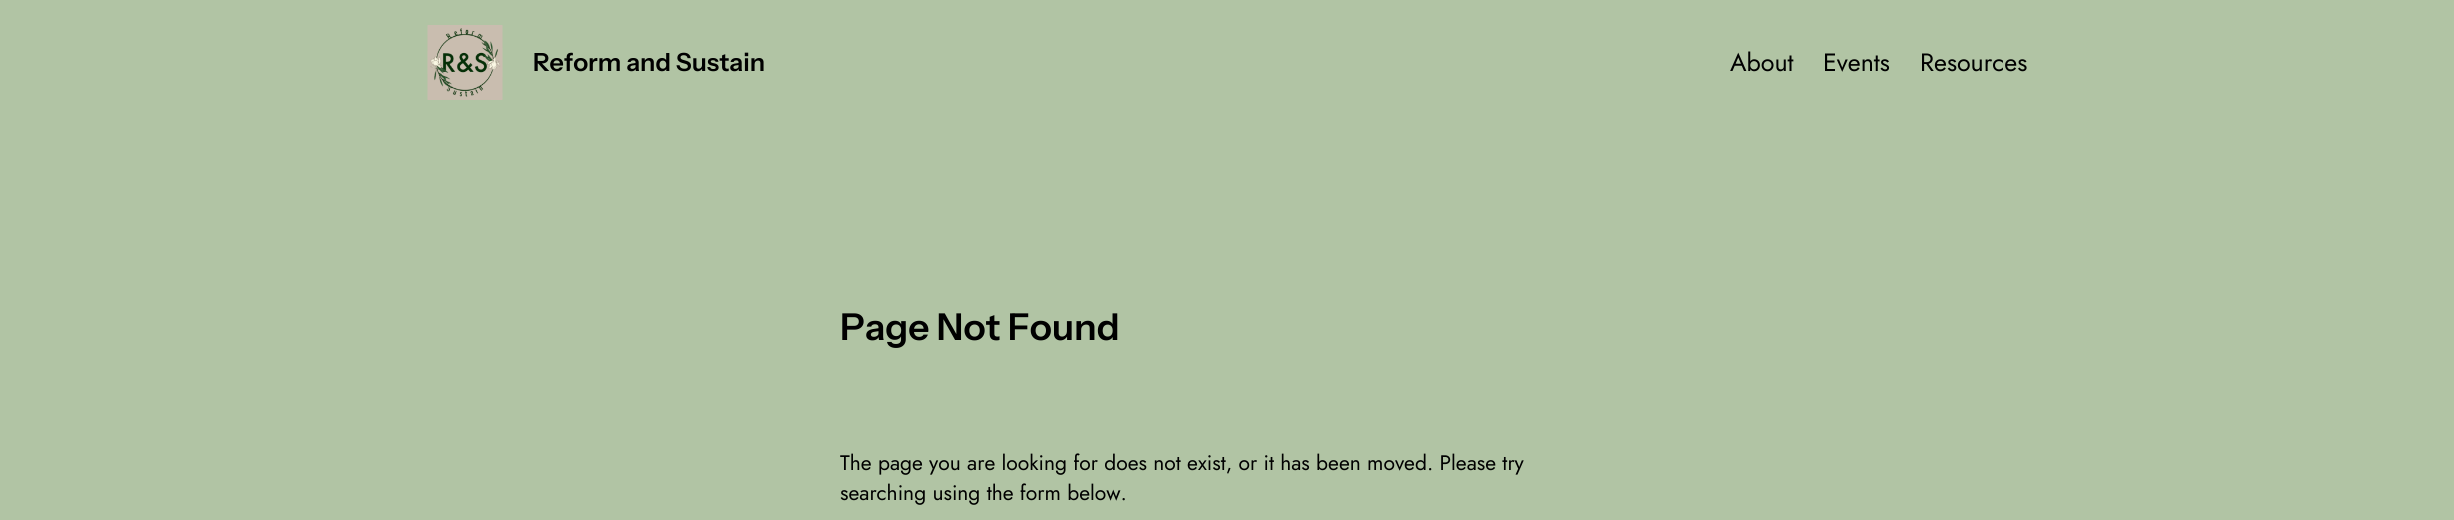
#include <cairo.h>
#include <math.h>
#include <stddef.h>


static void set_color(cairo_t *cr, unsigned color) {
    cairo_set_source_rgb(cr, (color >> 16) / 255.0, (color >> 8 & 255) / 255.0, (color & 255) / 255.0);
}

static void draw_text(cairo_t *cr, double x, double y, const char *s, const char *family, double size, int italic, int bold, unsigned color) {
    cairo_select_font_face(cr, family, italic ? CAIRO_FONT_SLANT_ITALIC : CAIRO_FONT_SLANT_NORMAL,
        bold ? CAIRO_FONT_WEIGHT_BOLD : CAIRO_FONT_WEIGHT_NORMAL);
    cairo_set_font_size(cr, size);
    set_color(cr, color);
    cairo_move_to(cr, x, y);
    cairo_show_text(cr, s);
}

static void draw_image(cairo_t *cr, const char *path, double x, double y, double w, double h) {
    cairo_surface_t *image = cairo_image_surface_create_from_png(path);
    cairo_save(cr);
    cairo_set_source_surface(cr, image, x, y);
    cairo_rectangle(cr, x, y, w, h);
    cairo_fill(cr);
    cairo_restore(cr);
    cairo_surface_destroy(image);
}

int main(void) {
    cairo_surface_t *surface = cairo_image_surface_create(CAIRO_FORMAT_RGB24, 2454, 520);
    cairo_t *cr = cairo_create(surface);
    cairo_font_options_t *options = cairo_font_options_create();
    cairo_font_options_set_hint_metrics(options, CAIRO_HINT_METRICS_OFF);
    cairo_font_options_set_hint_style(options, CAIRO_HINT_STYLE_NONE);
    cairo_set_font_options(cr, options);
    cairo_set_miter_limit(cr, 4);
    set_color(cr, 0xB1C4A4);
    cairo_paint(cr);
    draw_image(cr, "assets/img1.png", 427, 25, 76, 75);
    draw_text(cr, 533, 71, "Reform and Sustain", "Instrument Sans SemiBold", 25, 0, 0, 0x000000);
    draw_text(cr, 1730, 71, "About", "Jost", 25, 0, 0, 0x000000);
    draw_text(cr, 1823, 71, "Events", "Jost", 25, 0, 0, 0x000000);
    draw_text(cr, 1920, 71, "Resources", "Jost", 25, 0, 0, 0x000000);
    draw_text(cr, 840, 340, "Page Not Found", "Instrument Sans SemiBold", 37, 0, 0, 0x000000);
    draw_text(cr, 840, 470, "The page you are looking for does not exist, or it has been moved. Please try", "Jost", 21, 0, 0, 0x000000);
    draw_text(cr, 840, 500, "searching using the form below.", "Jost", 21, 0, 0, 0x000000);
    cairo_surface_write_to_png(surface, "output.png");
    cairo_font_options_destroy(options);
    cairo_destroy(cr);
    cairo_surface_destroy(surface);
    return 0;
}
